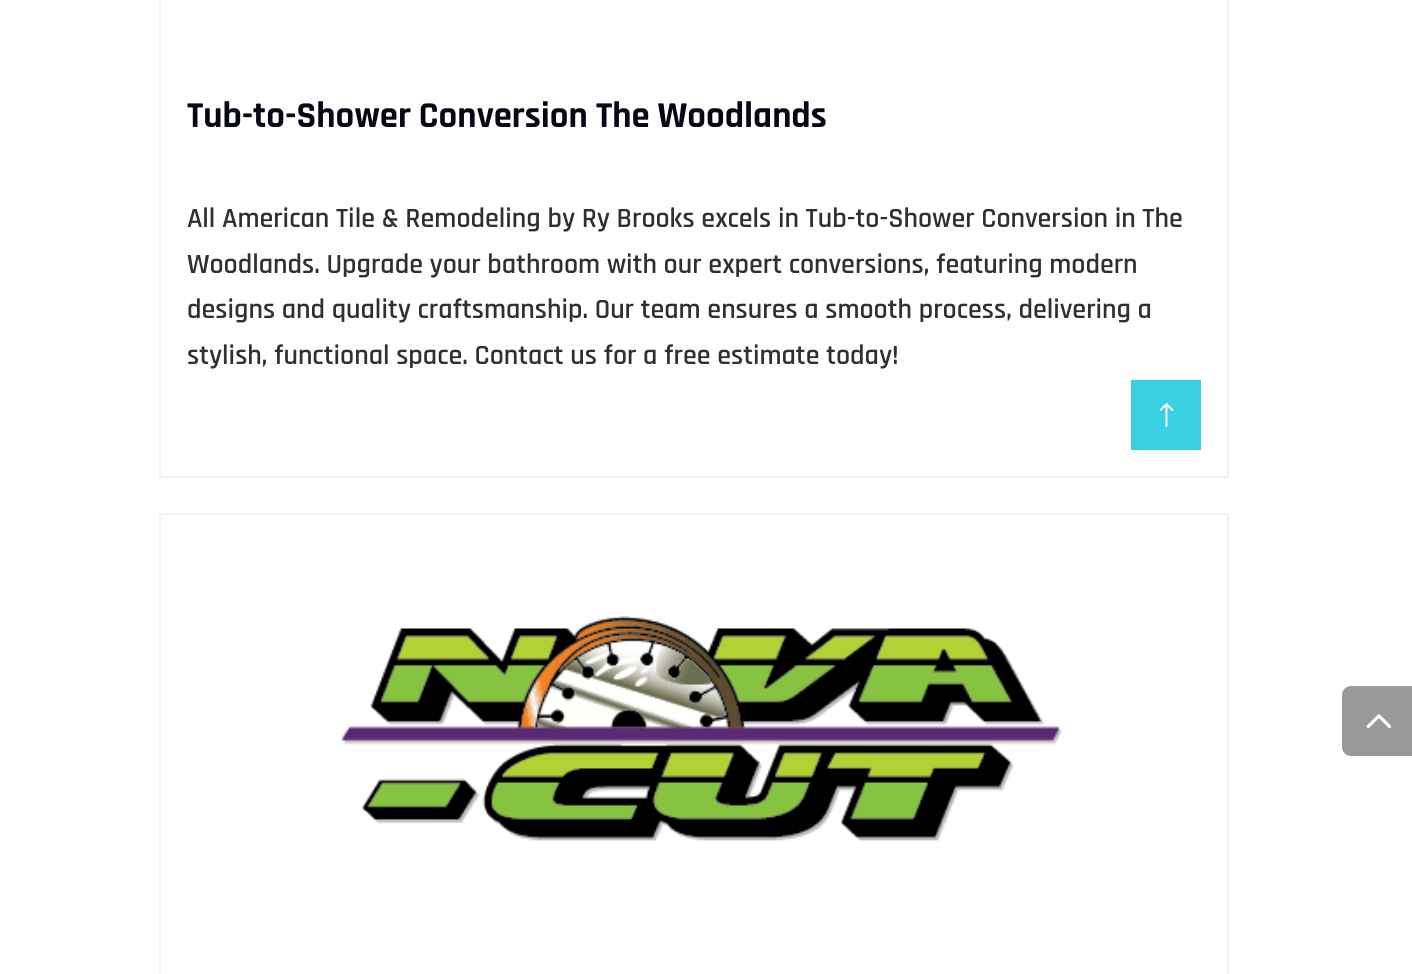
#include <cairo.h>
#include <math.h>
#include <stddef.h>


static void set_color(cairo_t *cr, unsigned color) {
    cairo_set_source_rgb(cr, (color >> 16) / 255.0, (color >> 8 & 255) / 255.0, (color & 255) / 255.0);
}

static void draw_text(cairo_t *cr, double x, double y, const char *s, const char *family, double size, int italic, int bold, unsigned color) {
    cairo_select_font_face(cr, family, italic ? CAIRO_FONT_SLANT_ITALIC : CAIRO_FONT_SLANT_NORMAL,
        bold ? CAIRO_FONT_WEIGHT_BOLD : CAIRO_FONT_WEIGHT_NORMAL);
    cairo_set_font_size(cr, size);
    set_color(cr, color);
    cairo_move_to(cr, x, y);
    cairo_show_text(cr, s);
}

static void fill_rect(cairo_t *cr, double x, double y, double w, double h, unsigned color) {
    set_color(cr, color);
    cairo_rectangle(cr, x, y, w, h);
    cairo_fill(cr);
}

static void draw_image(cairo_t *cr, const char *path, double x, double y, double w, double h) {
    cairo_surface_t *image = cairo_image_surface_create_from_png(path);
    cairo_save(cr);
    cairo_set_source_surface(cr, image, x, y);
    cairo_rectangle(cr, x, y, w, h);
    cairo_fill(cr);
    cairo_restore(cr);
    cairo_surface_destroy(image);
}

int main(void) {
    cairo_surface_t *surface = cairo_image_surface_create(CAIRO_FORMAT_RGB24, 1412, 974);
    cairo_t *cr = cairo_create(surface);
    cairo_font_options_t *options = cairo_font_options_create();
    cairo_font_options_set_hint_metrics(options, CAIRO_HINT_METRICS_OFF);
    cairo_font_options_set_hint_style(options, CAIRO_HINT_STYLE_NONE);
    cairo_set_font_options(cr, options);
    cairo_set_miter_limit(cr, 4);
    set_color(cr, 0xFFFFFF);
    cairo_paint(cr);
    cairo_rectangle(cr, 160, -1, 1068, 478);
    set_color(cr, 0xF2F2F2);
    cairo_stroke(cr);
    draw_text(cr, 187, 127, "Tub-to-Shower Conversion The Woodlands", "Rajdhani", 36.75, 0, 1, 0x060815);
    draw_text(cr, 187, 227, "All American Tile & Remodeling by Ry Brooks excels in Tub-to-Shower Conversion in The", "Rajdhani SemiBold", 28, 0, 0, 0x303030);
    draw_text(cr, 187, 273, "Woodlands. Upgrade your bathroom with our expert conversions, featuring modern", "Rajdhani SemiBold", 28, 0, 0, 0x303030);
    draw_text(cr, 187, 318, "designs and quality craftsmanship. Our team ensures a smooth process, delivering a", "Rajdhani SemiBold", 28, 0, 0, 0x303030);
    draw_text(cr, 187, 364, "stylish, functional space. Contact us for a free estimate today!", "Rajdhani SemiBold", 28, 0, 0, 0x303030);
    fill_rect(cr, 1131, 380, 70, 70, 0x39D0E0);
    draw_image(cr, "assets/img1.png", 1159, 403, 15, 24);
    cairo_rectangle(cr, 160, 514, 1068, 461);
    set_color(cr, 0xF2F2F2);
    cairo_stroke(cr);
    draw_image(cr, "assets/img2.png", 340, 616, 723, 225);
    set_color(cr, 0x999999);
    cairo_new_path(cr);
    cairo_move_to(cr, 1351, 686);
    cairo_line_to(cr, 1412, 686);
    cairo_line_to(cr, 1412, 756);
    cairo_line_to(cr, 1351, 756);
    cairo_curve_to(cr, 1346, 756, 1342, 752, 1342, 747);
    cairo_line_to(cr, 1342, 695);
    cairo_curve_to(cr, 1342, 690, 1346, 686, 1351, 686);
    cairo_close_path(cr);
    cairo_fill(cr);
    draw_image(cr, "assets/img3.png", 1366, 714, 26, 15);
    cairo_surface_write_to_png(surface, "output.png");
    cairo_font_options_destroy(options);
    cairo_destroy(cr);
    cairo_surface_destroy(surface);
    return 0;
}
